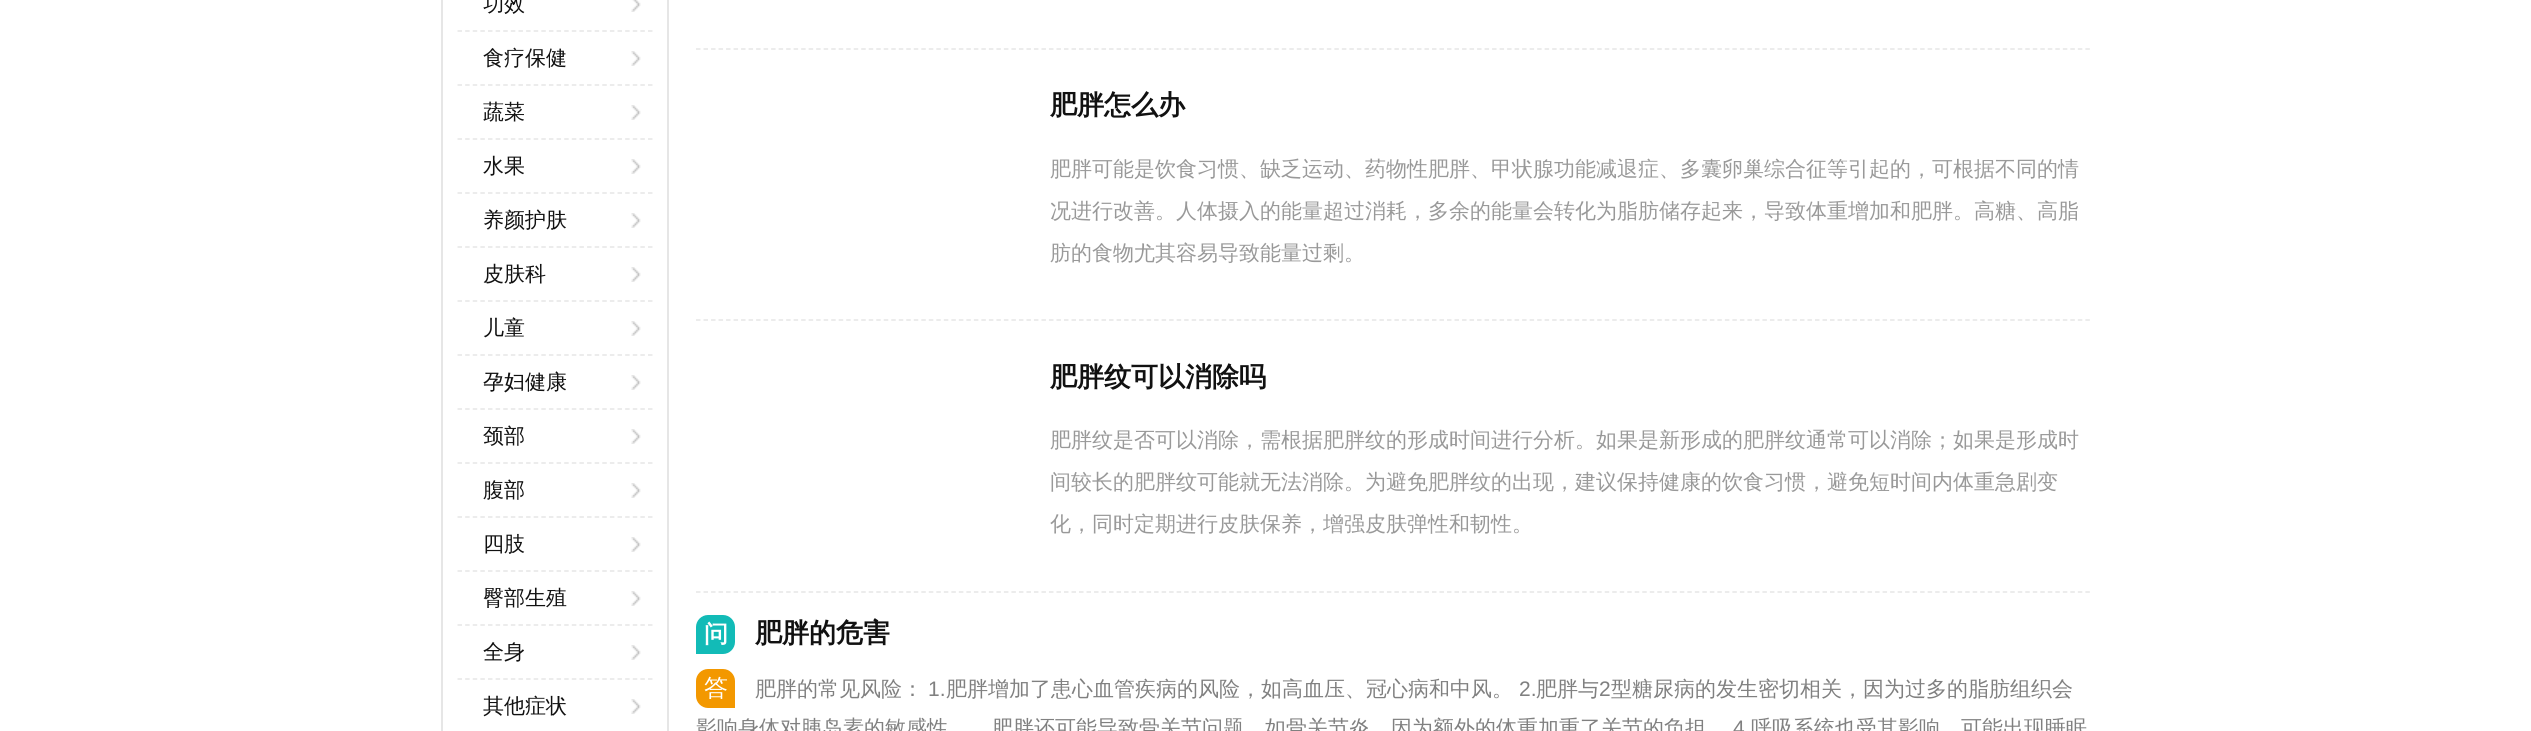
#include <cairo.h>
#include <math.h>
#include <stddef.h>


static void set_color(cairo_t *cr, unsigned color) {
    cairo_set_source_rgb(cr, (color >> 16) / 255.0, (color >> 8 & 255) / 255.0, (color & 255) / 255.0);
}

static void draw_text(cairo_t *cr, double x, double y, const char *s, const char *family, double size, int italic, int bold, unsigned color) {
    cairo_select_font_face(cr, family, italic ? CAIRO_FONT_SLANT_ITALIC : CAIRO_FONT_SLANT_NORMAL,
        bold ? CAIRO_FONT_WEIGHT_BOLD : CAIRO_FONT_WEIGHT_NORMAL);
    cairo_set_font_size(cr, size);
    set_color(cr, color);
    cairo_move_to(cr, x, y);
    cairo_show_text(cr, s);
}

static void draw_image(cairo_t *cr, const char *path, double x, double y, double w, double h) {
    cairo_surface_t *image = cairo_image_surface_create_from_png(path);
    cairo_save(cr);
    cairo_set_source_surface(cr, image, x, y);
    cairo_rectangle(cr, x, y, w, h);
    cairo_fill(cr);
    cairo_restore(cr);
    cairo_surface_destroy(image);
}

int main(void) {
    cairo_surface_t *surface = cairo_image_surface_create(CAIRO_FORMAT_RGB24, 2531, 731);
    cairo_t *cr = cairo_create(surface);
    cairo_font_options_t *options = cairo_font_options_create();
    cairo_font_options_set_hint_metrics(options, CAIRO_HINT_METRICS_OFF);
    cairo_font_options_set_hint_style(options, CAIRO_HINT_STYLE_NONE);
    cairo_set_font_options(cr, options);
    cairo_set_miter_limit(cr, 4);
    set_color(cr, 0xFFFFFF);
    cairo_paint(cr);
    cairo_rectangle(cr, 442, -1, 226, 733);
    set_color(cr, 0xE6E6E6);
    cairo_stroke(cr);
    cairo_new_path(cr);
    cairo_move_to(cr, 457.5, 31);
    cairo_line_to(cr, 652.5, 31);
    cairo_set_line_width(cr, 1.5);
    cairo_set_dash(cr, (double[]){4.5, 3.12}, 2, 0);
    cairo_stroke(cr);
    draw_text(cr, 483, 11, "功效", "WenQuanYi Zen Hei Medium", 21, 0, 0, 0x111111);
    draw_image(cr, "assets/img1.png", 631, 0, 10, 12);
    cairo_new_path(cr);
    cairo_move_to(cr, 457.5, 85);
    cairo_line_to(cr, 652.5, 85);
    set_color(cr, 0xE6E6E6);
    cairo_stroke(cr);
    draw_text(cr, 483, 65, "食疗保健", "WenQuanYi Zen Hei Medium", 21, 0, 0, 0x111111);
    draw_image(cr, "assets/img2.png", 631, 51, 10, 15);
    cairo_new_path(cr);
    cairo_move_to(cr, 457.5, 139);
    cairo_line_to(cr, 652.5, 139);
    set_color(cr, 0xE6E6E6);
    cairo_stroke(cr);
    draw_text(cr, 483, 119, "蔬菜", "WenQuanYi Zen Hei Medium", 21, 0, 0, 0x111111);
    draw_image(cr, "assets/img2.png", 631, 105, 10, 15);
    cairo_new_path(cr);
    cairo_move_to(cr, 457.5, 193);
    cairo_line_to(cr, 652.5, 193);
    set_color(cr, 0xE6E6E6);
    cairo_stroke(cr);
    draw_text(cr, 483, 173, "水果", "WenQuanYi Zen Hei Medium", 21, 0, 0, 0x111111);
    draw_image(cr, "assets/img2.png", 631, 159, 10, 15);
    cairo_new_path(cr);
    cairo_move_to(cr, 457.5, 247);
    cairo_line_to(cr, 652.5, 247);
    set_color(cr, 0xE6E6E6);
    cairo_stroke(cr);
    draw_text(cr, 483, 227, "养颜护肤", "WenQuanYi Zen Hei Medium", 21, 0, 0, 0x111111);
    draw_image(cr, "assets/img2.png", 631, 213, 10, 15);
    cairo_new_path(cr);
    cairo_move_to(cr, 457.5, 301);
    cairo_line_to(cr, 652.5, 301);
    set_color(cr, 0xE6E6E6);
    cairo_stroke(cr);
    draw_text(cr, 483, 281, "皮肤科", "WenQuanYi Zen Hei Medium", 21, 0, 0, 0x111111);
    draw_image(cr, "assets/img2.png", 631, 267, 10, 15);
    cairo_new_path(cr);
    cairo_move_to(cr, 457.5, 355);
    cairo_line_to(cr, 652.5, 355);
    set_color(cr, 0xE6E6E6);
    cairo_stroke(cr);
    draw_text(cr, 483, 335, "儿童", "WenQuanYi Zen Hei Medium", 21, 0, 0, 0x111111);
    draw_image(cr, "assets/img2.png", 631, 321, 10, 15);
    cairo_new_path(cr);
    cairo_move_to(cr, 457.5, 409);
    cairo_line_to(cr, 652.5, 409);
    set_color(cr, 0xE6E6E6);
    cairo_stroke(cr);
    draw_text(cr, 483, 389, "孕妇健康", "WenQuanYi Zen Hei Medium", 21, 0, 0, 0x111111);
    draw_image(cr, "assets/img2.png", 631, 375, 10, 15);
    cairo_new_path(cr);
    cairo_move_to(cr, 457.5, 463);
    cairo_line_to(cr, 652.5, 463);
    set_color(cr, 0xE6E6E6);
    cairo_stroke(cr);
    draw_text(cr, 483, 443, "颈部", "WenQuanYi Zen Hei Medium", 21, 0, 0, 0x111111);
    draw_image(cr, "assets/img2.png", 631, 429, 10, 15);
    cairo_new_path(cr);
    cairo_move_to(cr, 457.5, 517);
    cairo_line_to(cr, 652.5, 517);
    set_color(cr, 0xE6E6E6);
    cairo_stroke(cr);
    draw_text(cr, 483, 497, "腹部", "WenQuanYi Zen Hei Medium", 21, 0, 0, 0x111111);
    draw_image(cr, "assets/img2.png", 631, 483, 10, 15);
    cairo_new_path(cr);
    cairo_move_to(cr, 457.5, 571);
    cairo_line_to(cr, 652.5, 571);
    set_color(cr, 0xE6E6E6);
    cairo_stroke(cr);
    draw_text(cr, 483, 551, "四肢", "WenQuanYi Zen Hei Medium", 21, 0, 0, 0x111111);
    draw_image(cr, "assets/img2.png", 631, 537, 10, 15);
    cairo_new_path(cr);
    cairo_move_to(cr, 457.5, 625);
    cairo_line_to(cr, 652.5, 625);
    set_color(cr, 0xE6E6E6);
    cairo_stroke(cr);
    draw_text(cr, 483, 605, "臀部生殖", "WenQuanYi Zen Hei Medium", 21, 0, 0, 0x111111);
    draw_image(cr, "assets/img2.png", 631, 591, 10, 15);
    cairo_new_path(cr);
    cairo_move_to(cr, 457.5, 679);
    cairo_line_to(cr, 652.5, 679);
    set_color(cr, 0xE6E6E6);
    cairo_stroke(cr);
    draw_text(cr, 483, 659, "全身", "WenQuanYi Zen Hei Medium", 21, 0, 0, 0x111111);
    draw_image(cr, "assets/img2.png", 631, 645, 10, 15);
    draw_text(cr, 483, 713, "其他症状", "WenQuanYi Zen Hei Medium", 21, 0, 0, 0x111111);
    draw_image(cr, "assets/img2.png", 631, 699, 10, 15);
    cairo_new_path(cr);
    cairo_move_to(cr, 696, 49);
    cairo_line_to(cr, 2091, 49);
    set_color(cr, 0xE6E6E6);
    cairo_set_dash(cr, (double[]){4.5, 3.01}, 2, 0);
    cairo_stroke(cr);
    cairo_new_path(cr);
    cairo_move_to(cr, 696, 320);
    cairo_line_to(cr, 2091, 320);
    cairo_stroke(cr);
    draw_text(cr, 1050, 114, "肥胖怎么办", "WenQuanYi Zen Hei", 27, 0, 1, 0x111111);
    draw_text(cr, 1050, 176, "肥胖可能是饮食习惯、缺乏运动、药物性肥胖、甲状腺功能减退症、多囊卵巢综合征等引起的，可根据不同的情", "WenQuanYi Zen Hei Medium", 21, 0, 0, 0x999999);
    draw_text(cr, 1050, 218, "况进行改善。人体摄入的能量超过消耗，多余的能量会转化为脂肪储存起来，导致体重增加和肥胖。高糖、高脂", "WenQuanYi Zen Hei Medium", 21, 0, 0, 0x999999);
    draw_text(cr, 1050, 260, "肪的食物尤其容易导致能量过剩。", "WenQuanYi Zen Hei Medium", 21, 0, 0, 0x999999);
    cairo_new_path(cr);
    cairo_move_to(cr, 696, 592);
    cairo_line_to(cr, 2091, 592);
    set_color(cr, 0xE6E6E6);
    cairo_stroke(cr);
    draw_text(cr, 1050, 386, "肥胖纹可以消除吗", "WenQuanYi Zen Hei", 27, 0, 1, 0x111111);
    draw_text(cr, 1050, 447, "肥胖纹是否可以消除，需根据肥胖纹的形成时间进行分析。如果是新形成的肥胖纹通常可以消除；如果是形成时", "WenQuanYi Zen Hei Medium", 21, 0, 0, 0x999999);
    draw_text(cr, 1050, 489, "间较长的肥胖纹可能就无法消除。为避免肥胖纹的出现，建议保持健康的饮食习惯，避免短时间内体重急剧变", "WenQuanYi Zen Hei Medium", 21, 0, 0, 0x999999);
    draw_text(cr, 1050, 531, "化，同时定期进行皮肤保养，增强皮肤弹性和韧性。", "WenQuanYi Zen Hei Medium", 21, 0, 0, 0x999999);
    set_color(cr, 0x12BBB7);
    cairo_new_path(cr);
    cairo_move_to(cr, 708, 615);
    cairo_line_to(cr, 723, 615);
    cairo_curve_to(cr, 729.5, 615, 735, 620.5, 735, 627);
    cairo_line_to(cr, 735, 642);
    cairo_curve_to(cr, 735, 648.5, 729.5, 654, 723, 654);
    cairo_line_to(cr, 696, 654);
    cairo_line_to(cr, 696, 627);
    cairo_curve_to(cr, 696, 620.5, 701.5, 615, 708, 615);
    cairo_close_path(cr);
    cairo_fill(cr);
    draw_text(cr, 704, 642, "问", "WenQuanYi Zen Hei", 24, 0, 1, 0xFFFFFF);
    draw_text(cr, 755, 642, "肥胖的危害", "WenQuanYi Zen Hei", 27, 0, 1, 0x111111);
    set_color(cr, 0xF39800);
    cairo_new_path(cr);
    cairo_move_to(cr, 708, 669);
    cairo_line_to(cr, 723, 669);
    cairo_curve_to(cr, 729.5, 669, 735, 674.5, 735, 681);
    cairo_line_to(cr, 735, 708);
    cairo_line_to(cr, 708, 708);
    cairo_curve_to(cr, 701.5, 708, 696, 702.5, 696, 696);
    cairo_line_to(cr, 696, 681);
    cairo_curve_to(cr, 696, 674.5, 701.5, 669, 708, 669);
    cairo_close_path(cr);
    cairo_fill(cr);
    draw_text(cr, 704, 696, "答", "WenQuanYi Zen Hei Medium", 24, 0, 0, 0xFFFFFF);
    draw_text(cr, 755, 696, "肥胖的常见风险：", "WenQuanYi Zen Hei Medium", 21, 0, 0, 0x808080);
    draw_text(cr, 928, 696, "1.", "Liberation Sans", 21, 0, 0, 0x808080);
    draw_text(cr, 946, 696, "肥胖增加了患心血管疾病的风险，如高血压、冠心病和中风。", "WenQuanYi Zen Hei Medium", 21, 0, 0, 0x808080);
    draw_text(cr, 1519, 696, "2.", "Liberation Sans", 21, 0, 0, 0x808080);
    draw_text(cr, 1536, 696, "肥胖与", "WenQuanYi Zen Hei Medium", 21, 0, 0, 0x808080);
    draw_text(cr, 1599, 696, "2", "Liberation Sans", 21, 0, 0, 0x808080);
    draw_text(cr, 1611, 696, "型糖尿病的发生密切相关，因为过多的脂肪组织会", "WenQuanYi Zen Hei Medium", 21, 0, 0, 0x808080);
    draw_text(cr, 696, 735, "影响身体对胰岛素的敏感性", "WenQuanYi Zen Hei Medium", 21, 0, 0, 0x808080);
    draw_text(cr, 992, 735, "肥胖还可能导致骨关节问题，如骨关节炎，因为额外的体重加重了关节的负担", "WenQuanYi Zen Hei Medium", 21, 0, 0, 0x808080);
    draw_text(cr, 1733, 735, "4", "Liberation Sans", 21, 0, 0, 0x808080);
    draw_text(cr, 1751, 735, "呼吸系统也受其影响，可能出现睡眠", "WenQuanYi Zen Hei Medium", 21, 0, 0, 0x808080);
    cairo_surface_write_to_png(surface, "output.png");
    cairo_font_options_destroy(options);
    cairo_destroy(cr);
    cairo_surface_destroy(surface);
    return 0;
}
